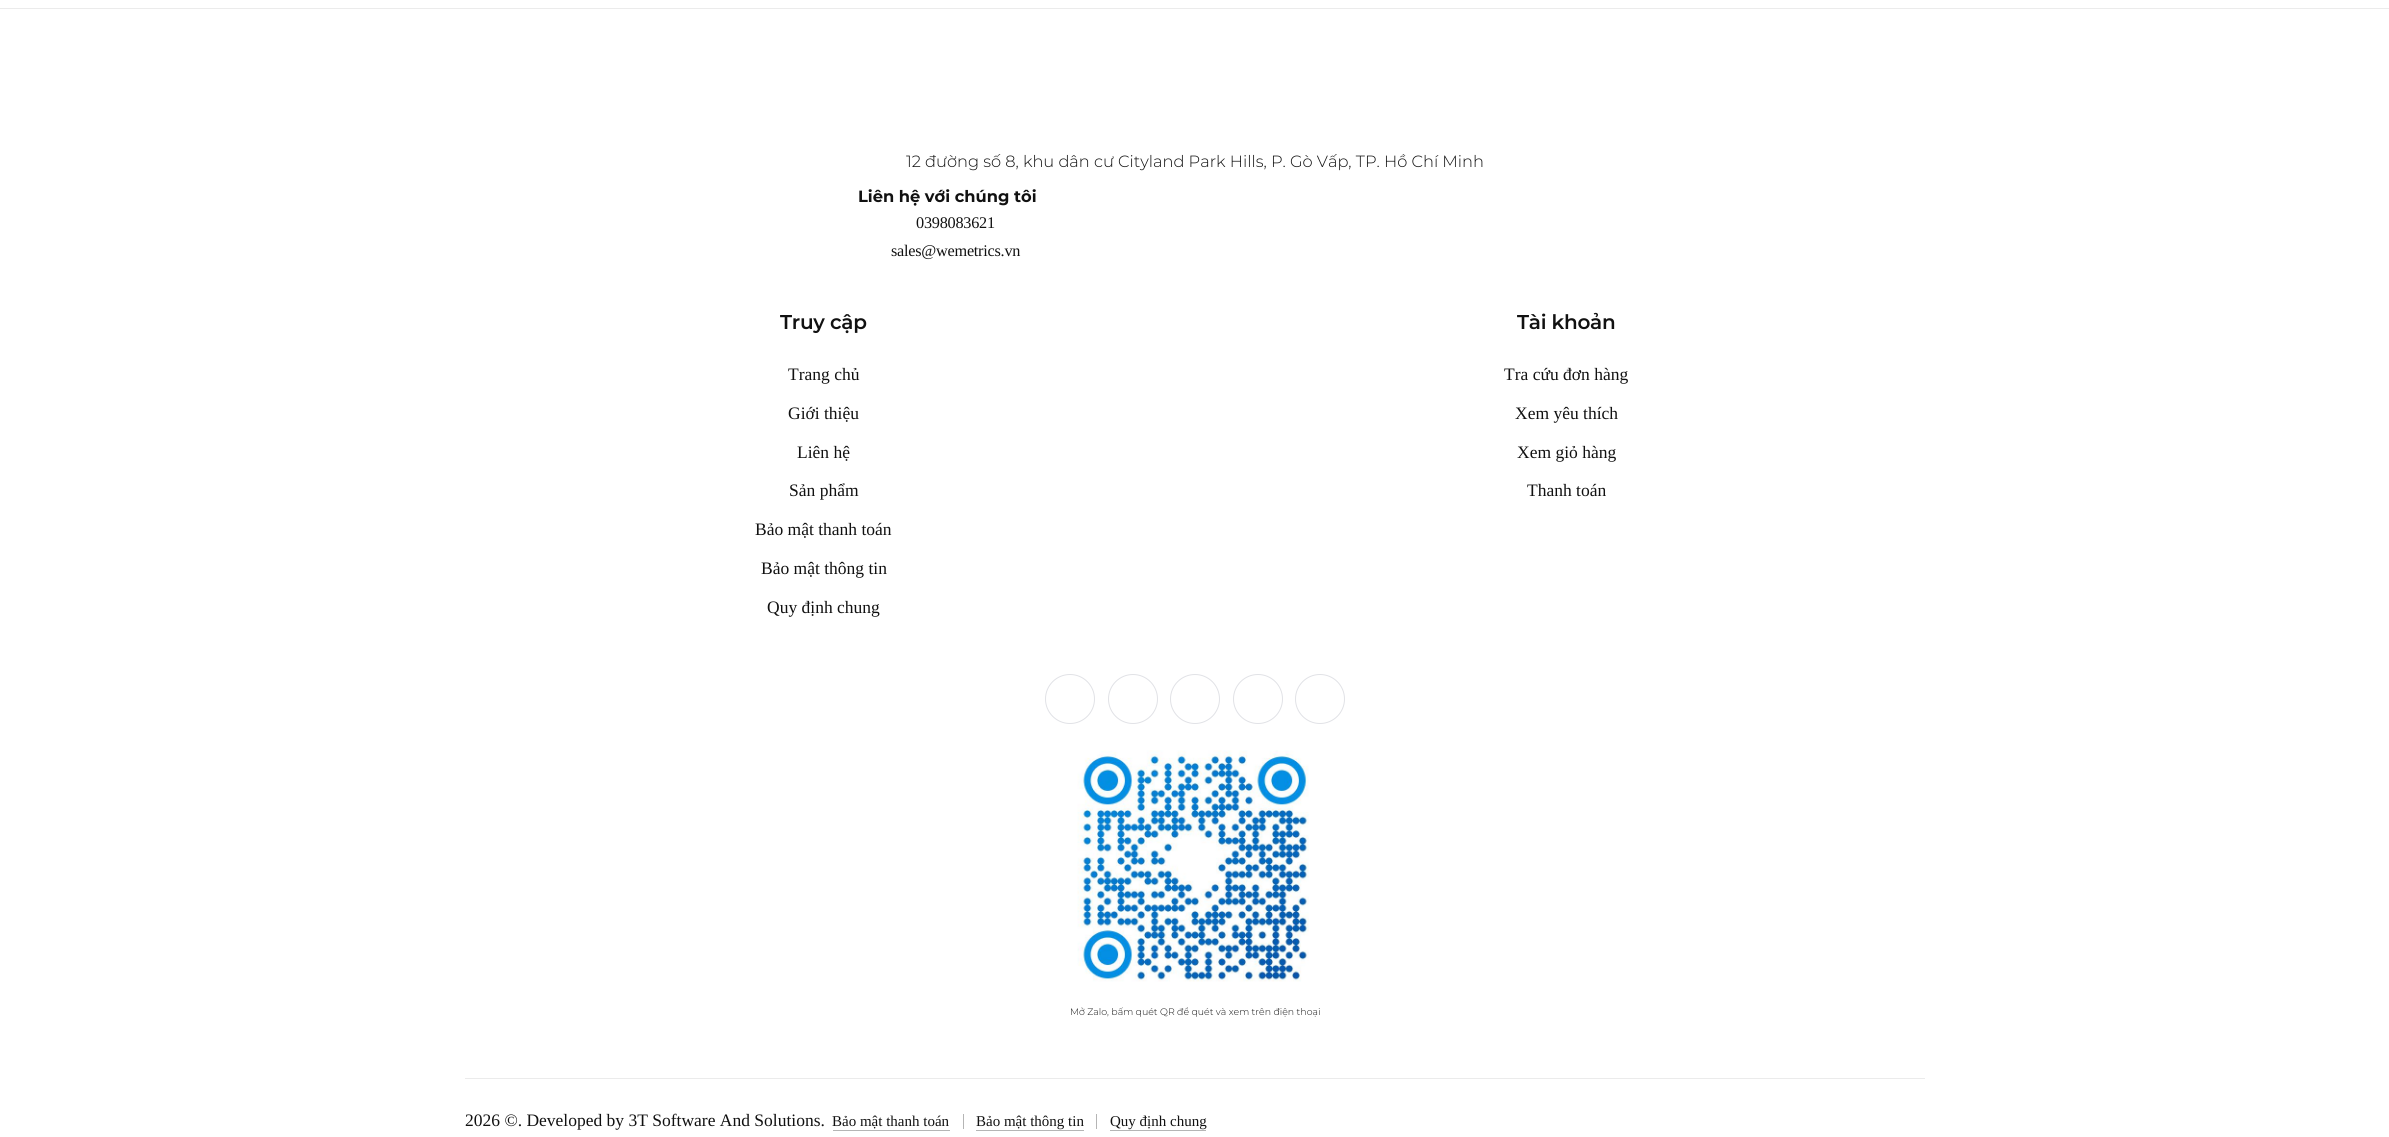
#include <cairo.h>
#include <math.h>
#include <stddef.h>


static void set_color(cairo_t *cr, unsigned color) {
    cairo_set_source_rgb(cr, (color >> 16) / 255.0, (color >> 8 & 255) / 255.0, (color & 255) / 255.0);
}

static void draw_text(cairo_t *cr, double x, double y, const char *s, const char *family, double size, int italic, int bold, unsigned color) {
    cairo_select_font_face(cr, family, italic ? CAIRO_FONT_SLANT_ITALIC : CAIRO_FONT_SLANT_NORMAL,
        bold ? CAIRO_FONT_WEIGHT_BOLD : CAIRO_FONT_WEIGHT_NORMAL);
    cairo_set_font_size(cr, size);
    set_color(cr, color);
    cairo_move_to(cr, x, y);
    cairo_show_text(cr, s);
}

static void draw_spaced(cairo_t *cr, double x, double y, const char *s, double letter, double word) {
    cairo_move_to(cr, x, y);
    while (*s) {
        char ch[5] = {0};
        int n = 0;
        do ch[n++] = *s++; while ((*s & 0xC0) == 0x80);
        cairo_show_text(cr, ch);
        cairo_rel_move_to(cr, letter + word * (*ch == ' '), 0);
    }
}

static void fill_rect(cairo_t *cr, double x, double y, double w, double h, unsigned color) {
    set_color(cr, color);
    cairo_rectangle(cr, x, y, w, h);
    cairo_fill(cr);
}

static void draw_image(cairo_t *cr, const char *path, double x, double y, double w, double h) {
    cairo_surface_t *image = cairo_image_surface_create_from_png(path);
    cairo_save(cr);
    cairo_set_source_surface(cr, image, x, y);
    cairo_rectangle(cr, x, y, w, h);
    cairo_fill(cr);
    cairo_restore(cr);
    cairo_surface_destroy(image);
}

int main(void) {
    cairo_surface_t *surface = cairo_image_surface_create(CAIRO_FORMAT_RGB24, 2389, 1137);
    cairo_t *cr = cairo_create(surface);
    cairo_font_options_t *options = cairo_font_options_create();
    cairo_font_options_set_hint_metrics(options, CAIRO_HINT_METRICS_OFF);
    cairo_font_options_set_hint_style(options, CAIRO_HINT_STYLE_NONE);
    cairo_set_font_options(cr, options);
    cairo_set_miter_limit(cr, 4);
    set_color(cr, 0xFFFFFF);
    cairo_paint(cr);
    fill_rect(cr, 0, 8, 2389, 1, 0xEBEBEB);
    draw_text(cr, 906, 167, "12 đường số 8, khu dân cư Cityland Park Hills, P. Gò Vấp, TP. Hồ Chí Minh", "Montserrat Light", 16.25, 0, 0, 0x111111);
    draw_text(cr, 858, 202, "Liên hệ với chúng tôi", "Montserrat", 16.25, 0, 1, 0x111111);
    cairo_select_font_face(cr, "Liberation Serif", CAIRO_FONT_SLANT_NORMAL, CAIRO_FONT_WEIGHT_NORMAL);
    draw_spaced(cr, 916, 228, "0398083621", -0.25, 0);
    draw_spaced(cr, 891, 256, "sales@wemetrics.vn", -0.25, 0);
    cairo_select_font_face(cr, "Montserrat SemiBold", CAIRO_FONT_SLANT_NORMAL, CAIRO_FONT_WEIGHT_NORMAL);
    cairo_set_font_size(cr, 20);
    draw_spaced(cr, 780, 329, "Truy cập", -0.25, 0);
    draw_text(cr, 788, 380, "Trang chủ", "Liberation Serif", 17.5, 0, 0, 0x111111);
    draw_text(cr, 788, 419, "Giới thiệu", "Liberation Serif", 17.5, 0, 0, 0x111111);
    draw_text(cr, 797, 458, "Liên hệ", "Liberation Serif", 17.5, 0, 0, 0x111111);
    draw_text(cr, 789, 496, "Sản phẩm", "Liberation Serif", 17.5, 0, 0, 0x111111);
    draw_text(cr, 755, 535, "Bảo mật thanh toán", "Liberation Serif", 17.5, 0, 0, 0x111111);
    draw_text(cr, 761, 574, "Bảo mật thông tin", "Liberation Serif", 17.5, 0, 0, 0x111111);
    draw_text(cr, 767, 613, "Quy định chung", "Liberation Serif", 17.5, 0, 0, 0x111111);
    cairo_select_font_face(cr, "Montserrat SemiBold", CAIRO_FONT_SLANT_NORMAL, CAIRO_FONT_WEIGHT_NORMAL);
    cairo_set_font_size(cr, 20);
    draw_spaced(cr, 1517, 329, "Tài khoản", -0.25, 0);
    draw_text(cr, 1504, 380, "Tra cứu đơn hàng", "Liberation Serif", 17.5, 0, 0, 0x111111);
    draw_text(cr, 1515, 419, "Xem yêu thích", "Liberation Serif", 17.5, 0, 0, 0x111111);
    draw_text(cr, 1517, 458, "Xem giỏ hàng", "Liberation Serif", 17.5, 0, 0, 0x111111);
    draw_text(cr, 1527, 496, "Thanh toán", "Liberation Serif", 17.5, 0, 0, 0x111111);
    cairo_new_path(cr);
    cairo_arc(cr, 1070, 699, 24.5, 0, 2 * M_PI);
    set_color(cr, 0xE1E2E6);
    cairo_set_line_width(cr, 1);
    cairo_stroke(cr);
    cairo_arc(cr, 1133, 699, 24.5, 0, 2 * M_PI);
    cairo_stroke(cr);
    cairo_arc(cr, 1195, 699, 24.5, 0, 2 * M_PI);
    cairo_stroke(cr);
    cairo_arc(cr, 1258, 699, 24.5, 0, 2 * M_PI);
    cairo_stroke(cr);
    cairo_arc(cr, 1320, 699, 24.5, 0, 2 * M_PI);
    cairo_stroke(cr);
    draw_image(cr, "assets/img1.png", 1077, 750, 232, 232);
    draw_text(cr, 1070, 1015, "Mở Zalo, bấm quét QR để quét và xem trên điện thoại", "Montserrat Light", 9.4, 0, 0, 0x111111);
    fill_rect(cr, 465, 1078, 1460, 1, 0xEBEBEB);
    draw_text(cr, 465, 1126, "2026 ©. Developed by 3T Software And Solutions.", "Liberation Serif", 17.5, 0, 0, 0x111111);
    draw_text(cr, 832, 1126, "Bảo mật thanh toán", "Liberation Serif", 15, 0, 0, 0x111111);
    fill_rect(cr, 833, 1130, 117, 1, 0xB5B5B5);
    fill_rect(cr, 963, 1114, 1, 15, 0xB5B5B5);
    draw_text(cr, 976, 1126, "Bảo mật thông tin", "Liberation Serif", 15, 0, 0, 0x111111);
    set_color(cr, 0xB5B5B5);
    cairo_new_path(cr);
    cairo_move_to(cr, 976, 1114);
    cairo_line_to(cr, 976, 1131);
    cairo_line_to(cr, 1084, 1131);
    cairo_line_to(cr, 1084, 1114);
    cairo_line_to(cr, 1084, 1130);
    cairo_line_to(cr, 976, 1130);
    cairo_close_path(cr);
    cairo_fill(cr);
    fill_rect(cr, 1096, 1114, 1, 15, 0xB5B5B5);
    draw_text(cr, 1110, 1126, "Quy định chung", "Liberation Serif", 15, 0, 0, 0x111111);
    fill_rect(cr, 1110, 1130, 96, 1, 0xB5B5B5);
    cairo_surface_write_to_png(surface, "output.png");
    cairo_font_options_destroy(options);
    cairo_destroy(cr);
    cairo_surface_destroy(surface);
    return 0;
}
